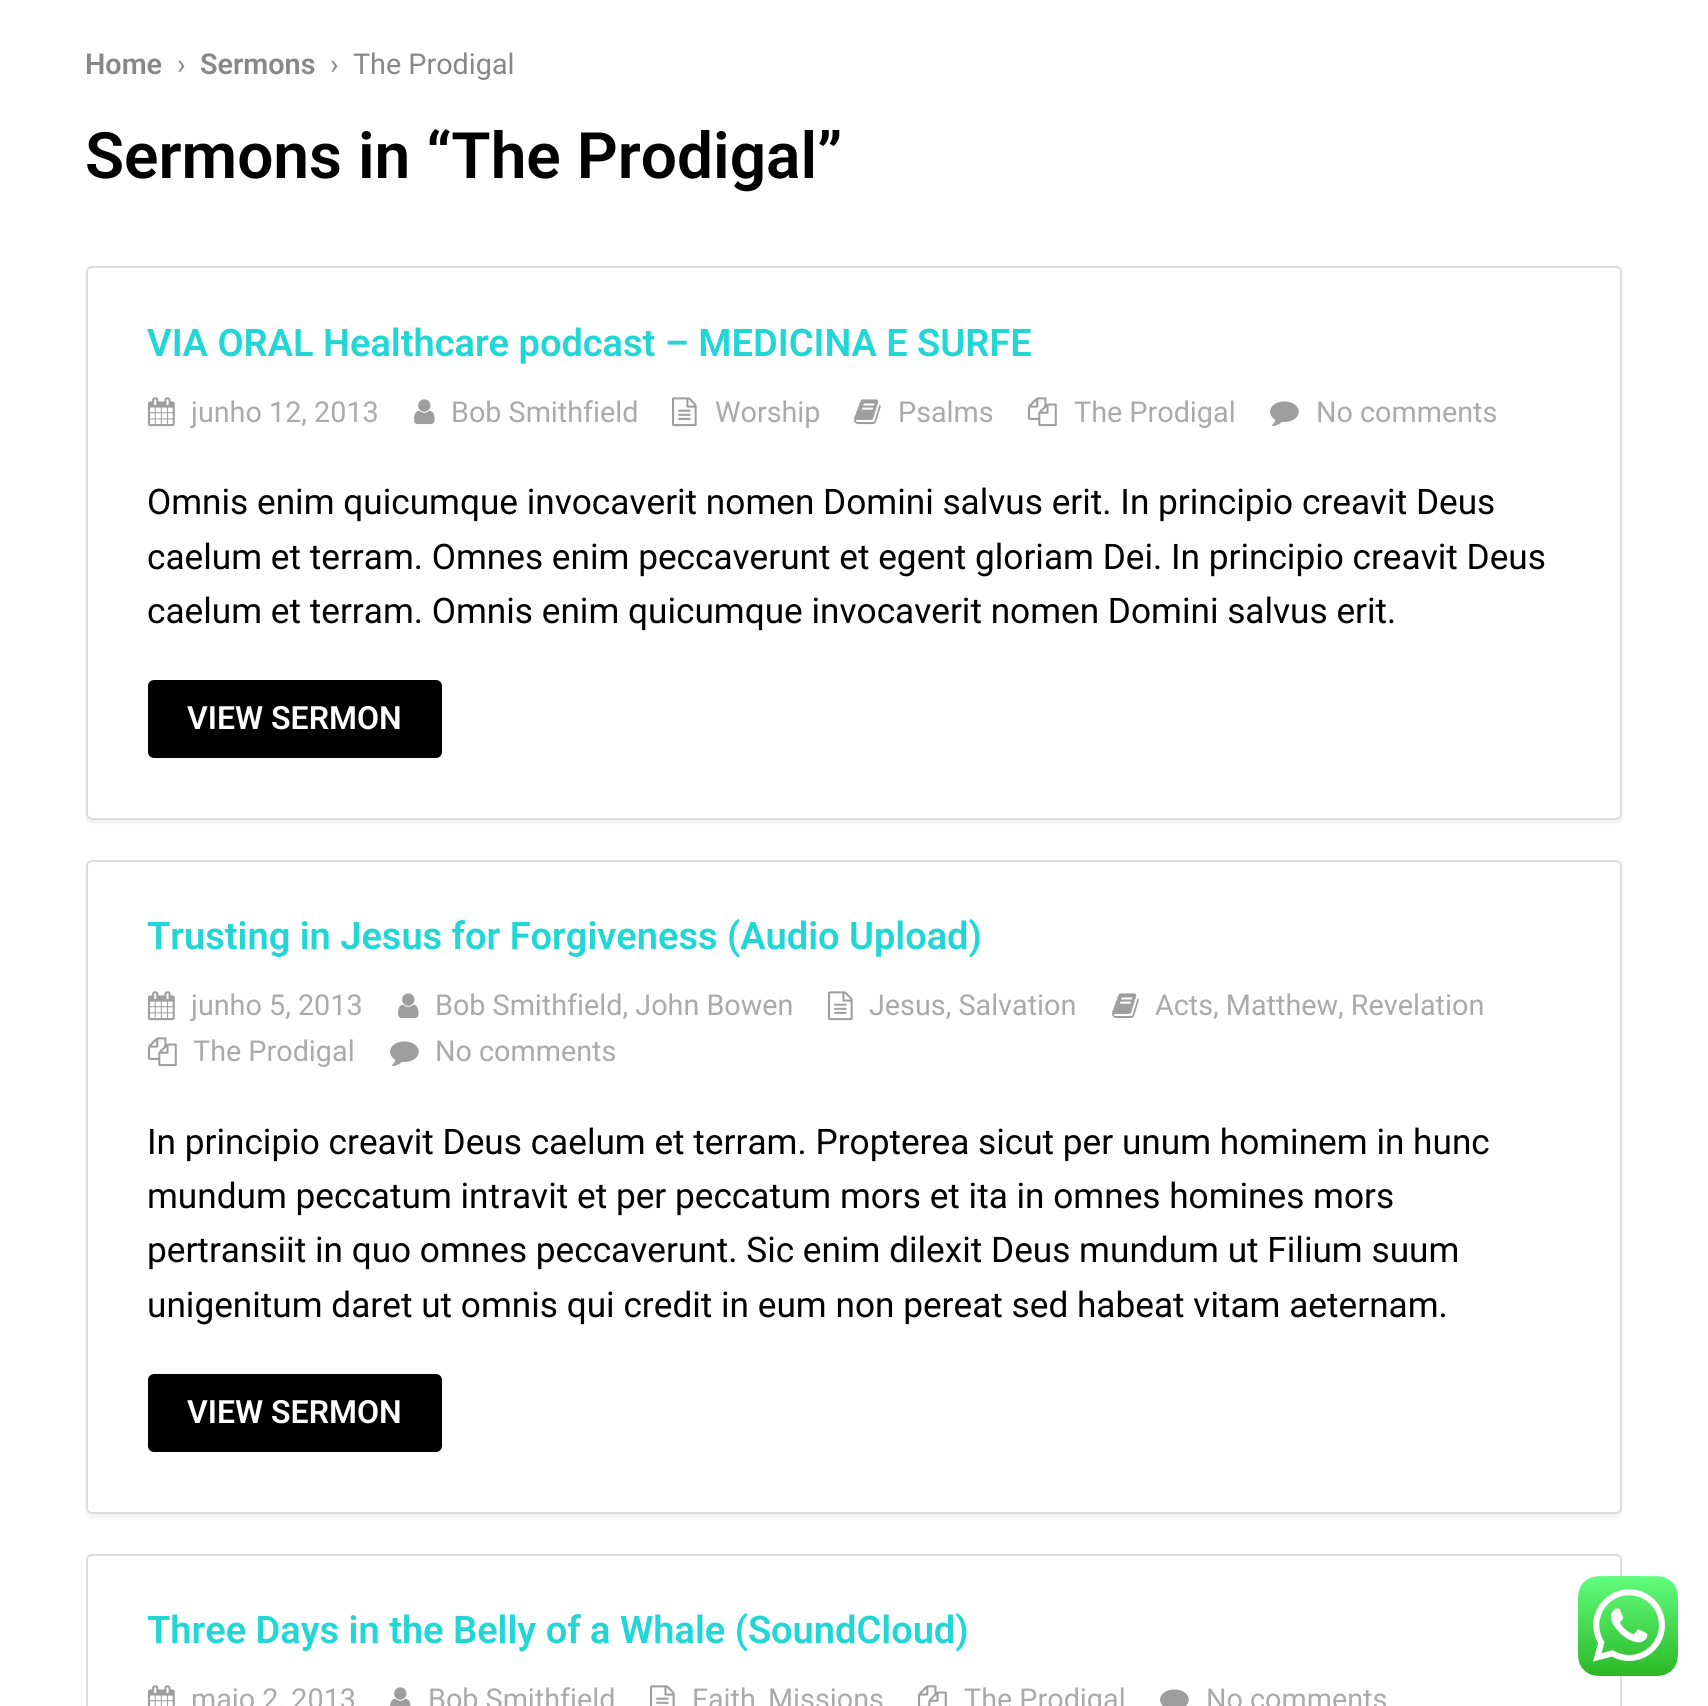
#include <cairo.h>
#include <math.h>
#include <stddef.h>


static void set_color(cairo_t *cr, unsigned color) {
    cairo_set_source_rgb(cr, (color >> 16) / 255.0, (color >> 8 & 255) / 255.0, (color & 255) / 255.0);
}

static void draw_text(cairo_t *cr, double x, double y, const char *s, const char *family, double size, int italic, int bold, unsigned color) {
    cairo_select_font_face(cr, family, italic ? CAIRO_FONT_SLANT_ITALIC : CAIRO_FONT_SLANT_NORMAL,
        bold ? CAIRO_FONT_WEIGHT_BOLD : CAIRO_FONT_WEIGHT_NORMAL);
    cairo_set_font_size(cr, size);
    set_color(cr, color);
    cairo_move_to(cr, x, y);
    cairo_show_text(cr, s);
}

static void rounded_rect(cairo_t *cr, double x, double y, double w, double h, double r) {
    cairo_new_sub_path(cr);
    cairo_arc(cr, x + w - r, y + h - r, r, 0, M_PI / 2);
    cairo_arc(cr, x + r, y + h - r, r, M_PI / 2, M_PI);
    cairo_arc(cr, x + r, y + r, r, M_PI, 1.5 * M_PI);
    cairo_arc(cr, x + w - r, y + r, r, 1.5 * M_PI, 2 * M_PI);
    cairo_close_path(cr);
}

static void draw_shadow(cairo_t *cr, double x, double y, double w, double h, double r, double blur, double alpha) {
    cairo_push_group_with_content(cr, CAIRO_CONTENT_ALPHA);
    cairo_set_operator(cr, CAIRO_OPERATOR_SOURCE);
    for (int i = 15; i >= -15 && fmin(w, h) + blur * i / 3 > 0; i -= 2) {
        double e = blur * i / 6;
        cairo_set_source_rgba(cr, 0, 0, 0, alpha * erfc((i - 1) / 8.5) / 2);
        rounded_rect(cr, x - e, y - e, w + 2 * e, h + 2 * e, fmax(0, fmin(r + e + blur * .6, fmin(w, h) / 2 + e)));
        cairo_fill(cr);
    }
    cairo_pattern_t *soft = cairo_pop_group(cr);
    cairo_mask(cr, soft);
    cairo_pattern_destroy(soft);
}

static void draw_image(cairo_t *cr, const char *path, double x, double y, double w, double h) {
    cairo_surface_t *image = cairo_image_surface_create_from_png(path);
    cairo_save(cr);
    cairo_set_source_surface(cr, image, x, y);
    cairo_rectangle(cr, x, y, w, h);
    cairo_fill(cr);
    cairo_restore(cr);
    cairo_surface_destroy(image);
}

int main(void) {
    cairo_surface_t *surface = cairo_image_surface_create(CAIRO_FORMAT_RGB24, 1708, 1706);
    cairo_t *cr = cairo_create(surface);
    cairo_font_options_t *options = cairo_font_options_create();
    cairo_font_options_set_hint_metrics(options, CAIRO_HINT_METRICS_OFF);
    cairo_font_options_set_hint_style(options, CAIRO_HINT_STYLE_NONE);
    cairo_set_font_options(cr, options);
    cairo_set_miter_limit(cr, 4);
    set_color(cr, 0xFFFFFF);
    cairo_paint(cr);
    draw_text(cr, 85, 74, "Home", "Roboto SemiBold", 28.75, 0, 0, 0x888888);
    draw_text(cr, 177, 74, "›", "Roboto", 28.75, 0, 0, 0x888888);
    draw_text(cr, 200, 74, "Sermons", "Roboto SemiBold", 28.75, 0, 0, 0x888888);
    draw_text(cr, 330, 74, "›  The Prodigal", "Roboto", 28.75, 0, 0, 0x888888);
    draw_text(cr, 85, 178, "Sermons in “The Prodigal”", "Roboto SemiBold", 64, 0, 0, 0x000000);
    cairo_save(cr);
    cairo_set_fill_rule(cr, CAIRO_FILL_RULE_EVEN_ODD);
    cairo_new_path(cr);
    cairo_move_to(cr, 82, 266);
    cairo_line_to(cr, 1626, 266);
    cairo_line_to(cr, 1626, 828);
    cairo_line_to(cr, 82, 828);
    cairo_close_path(cr);
    cairo_move_to(cr, 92, 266);
    cairo_line_to(cr, 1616, 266);
    cairo_curve_to(cr, 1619.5, 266, 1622, 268.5, 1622, 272);
    cairo_line_to(cr, 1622, 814);
    cairo_curve_to(cr, 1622, 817.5, 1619.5, 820, 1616, 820);
    cairo_line_to(cr, 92, 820);
    cairo_curve_to(cr, 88.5, 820, 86, 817.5, 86, 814);
    cairo_line_to(cr, 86, 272);
    cairo_curve_to(cr, 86, 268.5, 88.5, 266, 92, 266);
    cairo_close_path(cr);
    cairo_clip(cr);
    set_color(cr, 0x000000);
    draw_shadow(cr, 86, 270, 1536, 554, 6, 1, 0.05);
    cairo_restore(cr);
    rounded_rect(cr, 87, 267, 1534, 552, 5);
    set_color(cr, 0xDDDDDD);
    cairo_stroke(cr);
    draw_text(cr, 147, 356, "VIA ORAL Healthcare podcast – MEDICINA E SURFE", "Roboto SemiBold", 38, 0, 0, 0x22D6D6);
    draw_image(cr, "assets/img1.png", 148, 397, 27, 30);
    draw_text(cr, 191, 422, "junho 12, 2013", "Roboto", 28.75, 0, 0, 0xAAAAAA);
    draw_image(cr, "assets/img2.png", 414, 399, 21, 26);
    draw_text(cr, 451, 422, "Bob Smithfield", "Roboto", 28.75, 0, 0, 0xAAAAAA);
    draw_image(cr, "assets/img3.png", 672, 397, 25, 30);
    draw_text(cr, 715, 422, "Worship", "Roboto", 28.75, 0, 0, 0xAAAAAA);
    draw_image(cr, "assets/img4.png", 854, 399, 27, 26);
    draw_text(cr, 898, 422, "Psalms", "Roboto", 28.75, 0, 0, 0xAAAAAA);
    draw_image(cr, "assets/img5.png", 1028, 397, 29, 30);
    draw_text(cr, 1074, 422, "The Prodigal", "Roboto", 28.75, 0, 0, 0xAAAAAA);
    draw_image(cr, "assets/img6.png", 1270, 401, 29, 25);
    draw_text(cr, 1316, 422, "No comments", "Roboto", 28.75, 0, 0, 0xAAAAAA);
    draw_text(cr, 147, 514, "Omnis enim quicumque invocaverit nomen Domini salvus erit. In principio creavit Deus", "Roboto", 35.2, 0, 0, 0x000000);
    draw_text(cr, 147, 569, "caelum et terram. Omnes enim peccaverunt et egent gloriam Dei. In principio creavit Deus", "Roboto", 35.2, 0, 0, 0x000000);
    draw_text(cr, 147, 623, "caelum et terram. Omnis enim quicumque invocaverit nomen Domini salvus erit.", "Roboto", 35.2, 0, 0, 0x000000);
    rounded_rect(cr, 148, 680, 294, 78, 6);
    cairo_fill(cr);
    draw_text(cr, 187, 729, "VIEW SERMON", "Roboto SemiBold", 32, 0, 0, 0xFFFFFF);
    cairo_save(cr);
    cairo_set_fill_rule(cr, CAIRO_FILL_RULE_EVEN_ODD);
    cairo_new_path(cr);
    cairo_move_to(cr, 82, 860);
    cairo_line_to(cr, 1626, 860);
    cairo_line_to(cr, 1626, 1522);
    cairo_line_to(cr, 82, 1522);
    cairo_close_path(cr);
    cairo_move_to(cr, 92, 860);
    cairo_line_to(cr, 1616, 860);
    cairo_curve_to(cr, 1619.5, 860, 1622, 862.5, 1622, 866);
    cairo_line_to(cr, 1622, 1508);
    cairo_curve_to(cr, 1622, 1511.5, 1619.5, 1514, 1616, 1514);
    cairo_line_to(cr, 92, 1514);
    cairo_curve_to(cr, 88.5, 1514, 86, 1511.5, 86, 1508);
    cairo_line_to(cr, 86, 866);
    cairo_curve_to(cr, 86, 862.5, 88.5, 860, 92, 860);
    cairo_close_path(cr);
    cairo_clip(cr);
    set_color(cr, 0x000000);
    draw_shadow(cr, 86, 864, 1536, 654, 6, 1, 0.05);
    cairo_restore(cr);
    rounded_rect(cr, 87, 861, 1534, 652, 5);
    set_color(cr, 0xDDDDDD);
    cairo_stroke(cr);
    draw_text(cr, 147, 949, "Trusting in Jesus for Forgiveness (Audio Upload)", "Roboto SemiBold", 38, 0, 0, 0x22D6D6);
    draw_image(cr, "assets/img1.png", 148, 991, 27, 30);
    draw_text(cr, 191, 1015, "junho 5, 2013", "Roboto", 28.75, 0, 0, 0xAAAAAA);
    draw_image(cr, "assets/img2.png", 398, 993, 21, 26);
    draw_text(cr, 435, 1015, "Bob Smithfield, John Bowen", "Roboto", 28.75, 0, 0, 0xAAAAAA);
    draw_image(cr, "assets/img3.png", 828, 991, 25, 30);
    draw_text(cr, 869, 1015, "Jesus, Salvation", "Roboto", 28.75, 0, 0, 0xAAAAAA);
    draw_image(cr, "assets/img4.png", 1112, 993, 27, 26);
    draw_text(cr, 1155, 1015, "Acts, Matthew, Revelation", "Roboto", 28.75, 0, 0, 0xAAAAAA);
    draw_image(cr, "assets/img5.png", 148, 1037, 29, 30);
    draw_text(cr, 193, 1061, "The Prodigal", "Roboto", 28.75, 0, 0, 0xAAAAAA);
    draw_image(cr, "assets/img6.png", 390, 1041, 29, 25);
    draw_text(cr, 435, 1061, "No comments", "Roboto", 28.75, 0, 0, 0xAAAAAA);
    draw_text(cr, 147, 1154, "In principio creavit Deus caelum et terram. Propterea sicut per unum hominem in hunc", "Roboto", 35.2, 0, 0, 0x000000);
    draw_text(cr, 147, 1208, "mundum peccatum intravit et per peccatum mors et ita in omnes homines mors", "Roboto", 35.2, 0, 0, 0x000000);
    draw_text(cr, 147, 1262, "pertransiit in quo omnes peccaverunt. Sic enim dilexit Deus mundum ut Filium suum", "Roboto", 35.2, 0, 0, 0x000000);
    draw_text(cr, 147, 1317, "unigenitum daret ut omnis qui credit in eum non pereat sed habeat vitam aeternam.", "Roboto", 35.2, 0, 0, 0x000000);
    rounded_rect(cr, 148, 1374, 294, 78, 6);
    cairo_fill(cr);
    draw_text(cr, 187, 1423, "VIEW SERMON", "Roboto SemiBold", 32, 0, 0, 0xFFFFFF);
    rounded_rect(cr, 87, 1555, 1534, 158, 5);
    set_color(cr, 0xDDDDDD);
    cairo_stroke(cr);
    draw_text(cr, 147, 1643, "Three Days in the Belly of a Whale (SoundCloud)", "Roboto SemiBold", 38, 0, 0, 0x22D6D6);
    draw_image(cr, "assets/img7.png", 148, 1685, 27, 21);
    draw_text(cr, 191, 1709, "maio 2, 2013", "Roboto", 28.75, 0, 0, 0xAAAAAA);
    draw_image(cr, "assets/img8.png", 390, 1687, 21, 19);
    draw_text(cr, 428, 1709, "Bob Smithfield", "Roboto", 28.75, 0, 0, 0xAAAAAA);
    draw_image(cr, "assets/img9.png", 650, 1685, 25, 21);
    draw_text(cr, 692, 1709, "Faith", "Roboto", 28.75, 0, 0, 0xAAAAAA);
    draw_text(cr, 768, 1709, "Missions", "Roboto", 28.75, 0, 0, 0xAAAAAA);
    draw_image(cr, "assets/img10.png", 918, 1685, 29, 21);
    draw_text(cr, 964, 1709, "The Prodigal", "Roboto", 28.75, 0, 0, 0xAAAAAA);
    draw_image(cr, "assets/img11.png", 1160, 1689, 29, 17);
    draw_text(cr, 1206, 1709, "No comments", "Roboto", 28.75, 0, 0, 0xAAAAAA);
    draw_image(cr, "assets/img12.png", 1578, 1576, 100, 100);
    cairo_surface_write_to_png(surface, "output.png");
    cairo_font_options_destroy(options);
    cairo_destroy(cr);
    cairo_surface_destroy(surface);
    return 0;
}
